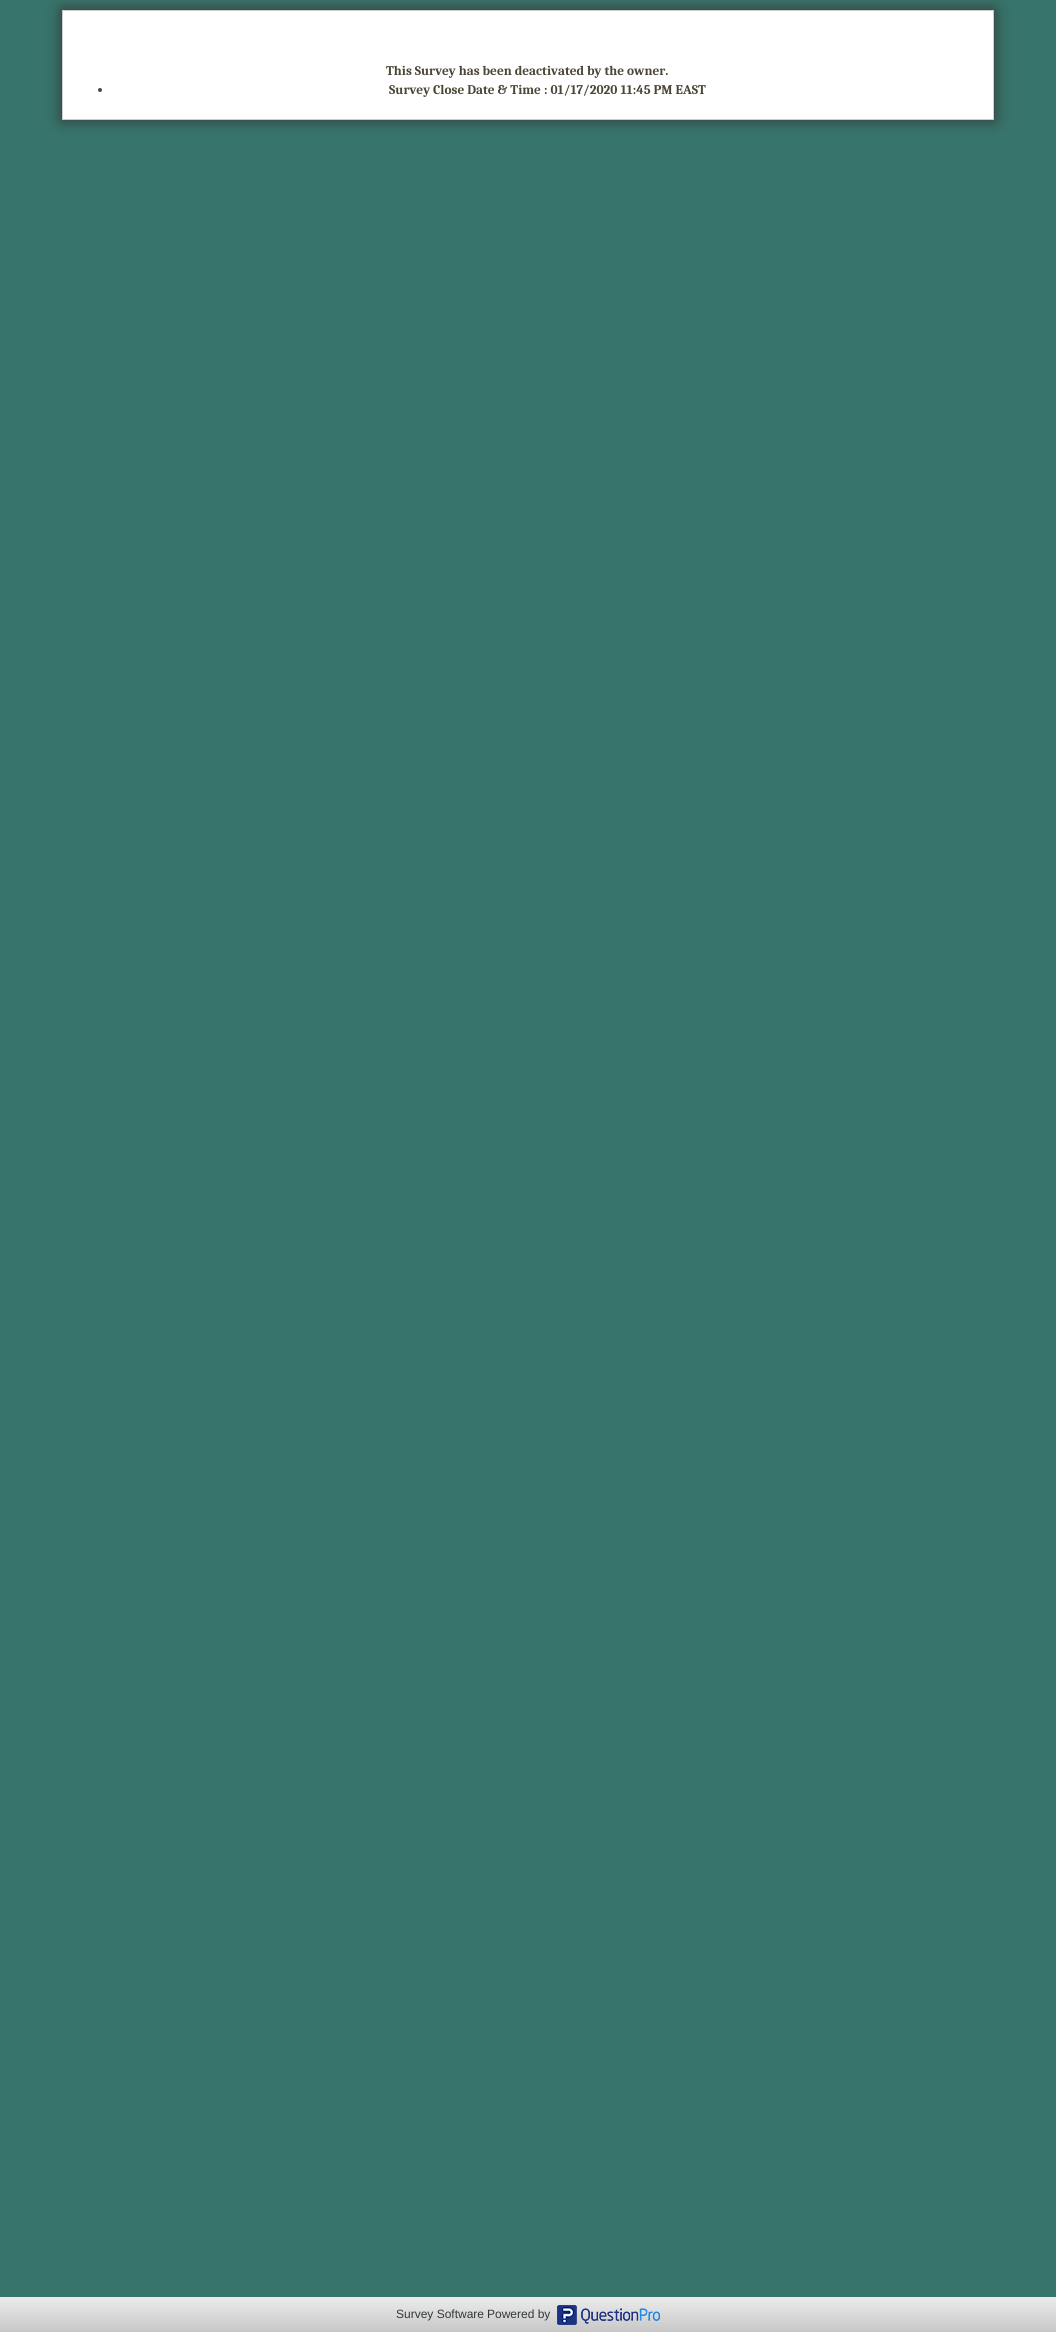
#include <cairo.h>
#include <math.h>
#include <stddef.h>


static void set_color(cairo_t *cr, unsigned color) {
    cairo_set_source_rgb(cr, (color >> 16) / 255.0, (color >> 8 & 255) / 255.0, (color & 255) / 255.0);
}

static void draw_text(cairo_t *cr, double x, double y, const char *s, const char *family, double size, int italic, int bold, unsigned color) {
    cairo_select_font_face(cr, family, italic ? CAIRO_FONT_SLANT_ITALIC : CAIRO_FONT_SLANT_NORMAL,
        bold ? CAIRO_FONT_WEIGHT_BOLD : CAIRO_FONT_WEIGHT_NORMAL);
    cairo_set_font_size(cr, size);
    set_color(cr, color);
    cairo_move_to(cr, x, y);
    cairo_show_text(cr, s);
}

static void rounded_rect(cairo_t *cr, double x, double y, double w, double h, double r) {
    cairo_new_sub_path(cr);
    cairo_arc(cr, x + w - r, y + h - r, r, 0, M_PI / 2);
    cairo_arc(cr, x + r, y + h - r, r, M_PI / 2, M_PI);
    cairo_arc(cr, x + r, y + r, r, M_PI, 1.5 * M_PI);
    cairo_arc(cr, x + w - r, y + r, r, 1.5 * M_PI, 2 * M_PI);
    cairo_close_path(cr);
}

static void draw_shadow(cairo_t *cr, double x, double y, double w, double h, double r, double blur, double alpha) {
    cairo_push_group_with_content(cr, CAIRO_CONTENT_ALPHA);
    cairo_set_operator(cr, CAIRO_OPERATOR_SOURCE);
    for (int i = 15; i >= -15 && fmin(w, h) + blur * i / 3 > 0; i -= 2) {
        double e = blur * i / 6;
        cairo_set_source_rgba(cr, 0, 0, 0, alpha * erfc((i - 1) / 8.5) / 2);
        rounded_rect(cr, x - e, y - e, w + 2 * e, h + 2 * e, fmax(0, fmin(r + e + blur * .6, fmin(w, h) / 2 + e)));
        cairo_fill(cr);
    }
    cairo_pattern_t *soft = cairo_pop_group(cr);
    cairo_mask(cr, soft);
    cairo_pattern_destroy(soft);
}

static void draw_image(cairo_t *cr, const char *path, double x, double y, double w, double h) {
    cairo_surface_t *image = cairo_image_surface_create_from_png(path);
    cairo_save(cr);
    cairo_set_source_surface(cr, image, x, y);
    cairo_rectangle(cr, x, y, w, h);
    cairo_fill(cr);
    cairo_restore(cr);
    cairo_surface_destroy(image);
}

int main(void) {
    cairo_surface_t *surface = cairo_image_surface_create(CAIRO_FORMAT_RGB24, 1056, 2332);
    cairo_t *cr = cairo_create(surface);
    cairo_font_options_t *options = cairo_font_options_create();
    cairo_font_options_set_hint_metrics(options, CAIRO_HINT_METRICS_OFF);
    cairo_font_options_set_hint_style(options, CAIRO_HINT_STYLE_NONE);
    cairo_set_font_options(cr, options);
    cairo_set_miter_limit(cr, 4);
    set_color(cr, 0x37746B);
    cairo_paint(cr);
    set_color(cr, 0x333333);
    draw_shadow(cr, 62, 10, 932, 110, 0, 7.5, 1);
    set_color(cr, 0xFFFFFF);
    cairo_rectangle(cr, 62.5, 10.5, 931, 109);
    cairo_fill_preserve(cr);
    set_color(cr, 0xCCCCCC);
    cairo_set_line_width(cr, 1);
    cairo_stroke(cr);
    draw_text(cr, 386, 75, "This Survey has been deactivated by the owner.", "Caladea", 13.3, 0, 1, 0x4C4637);
    cairo_new_path(cr);
    cairo_arc(cr, 100, 90, 2, 0, 2 * M_PI);
    cairo_fill(cr);
    draw_text(cr, 389, 94, "Survey Close Date & Time : 01/17/2020 11:45 PM EAST", "Caladea", 13.3, 0, 1, 0x4C4637);
    draw_image(cr, "assets/img1.png", 0, 2297, 1056, 35);
    draw_text(cr, 396, 2318, "Survey Software", "Liberation Sans", 12, 0, 0, 0x32383A);
    draw_text(cr, 487, 2318, "Powered by", "Liberation Sans", 12, 0, 0, 0x32383A);
    draw_image(cr, "assets/img2.png", 557, 2305, 103, 20);
    cairo_surface_write_to_png(surface, "output.png");
    cairo_font_options_destroy(options);
    cairo_destroy(cr);
    cairo_surface_destroy(surface);
    return 0;
}
